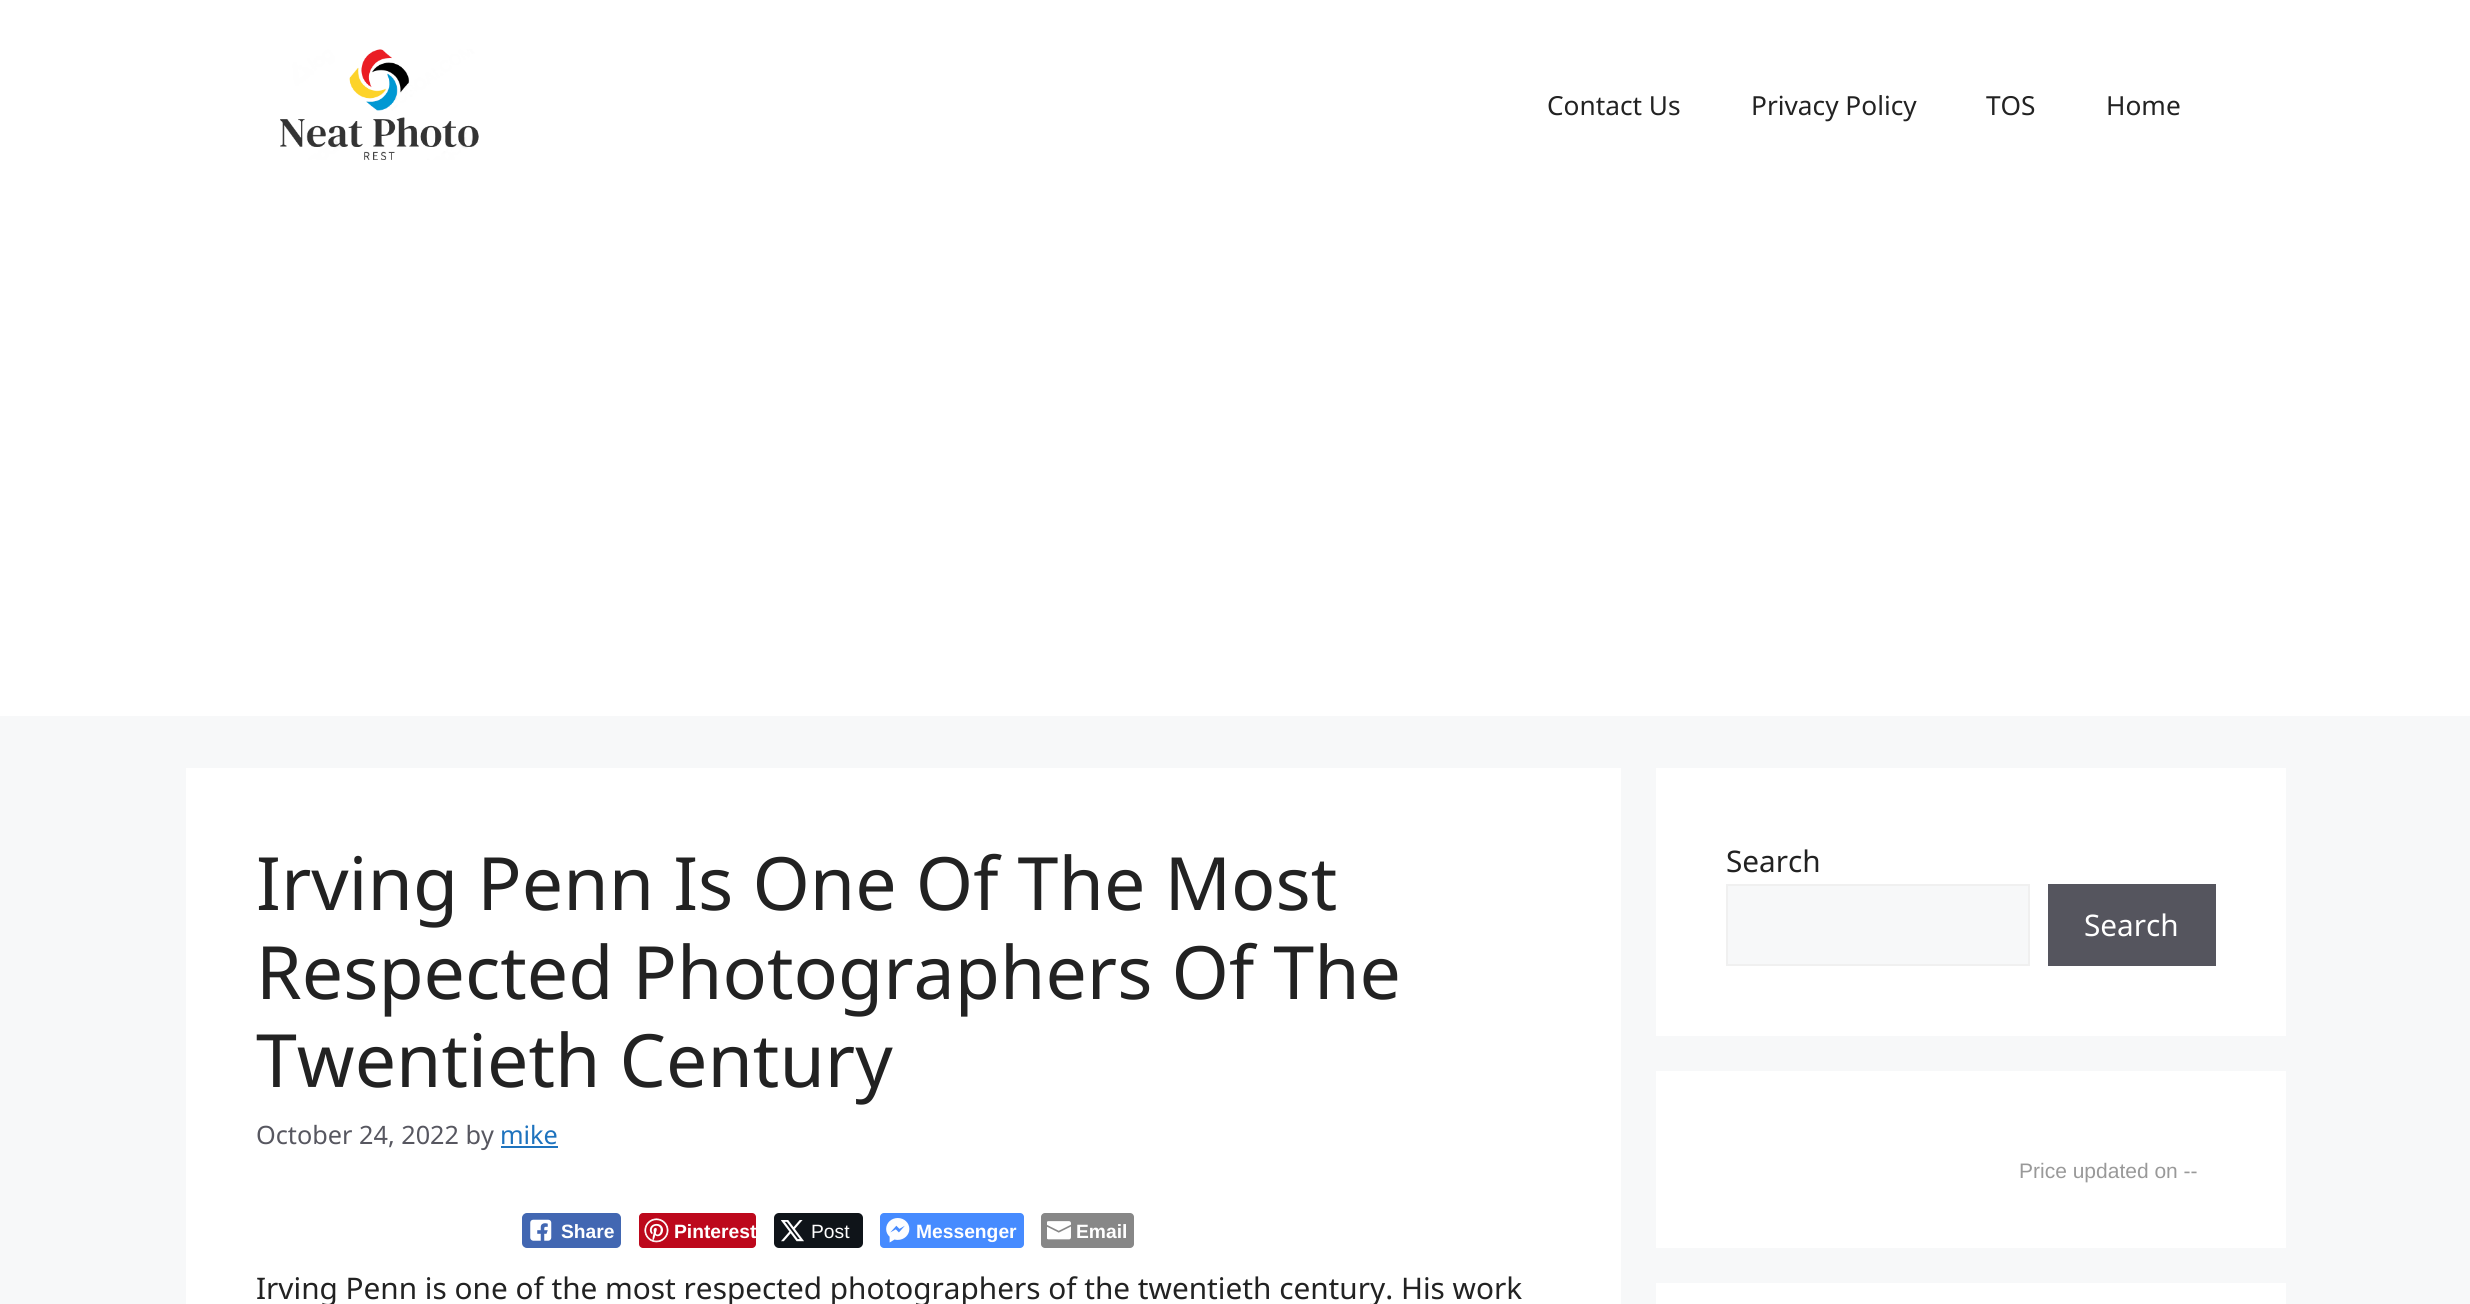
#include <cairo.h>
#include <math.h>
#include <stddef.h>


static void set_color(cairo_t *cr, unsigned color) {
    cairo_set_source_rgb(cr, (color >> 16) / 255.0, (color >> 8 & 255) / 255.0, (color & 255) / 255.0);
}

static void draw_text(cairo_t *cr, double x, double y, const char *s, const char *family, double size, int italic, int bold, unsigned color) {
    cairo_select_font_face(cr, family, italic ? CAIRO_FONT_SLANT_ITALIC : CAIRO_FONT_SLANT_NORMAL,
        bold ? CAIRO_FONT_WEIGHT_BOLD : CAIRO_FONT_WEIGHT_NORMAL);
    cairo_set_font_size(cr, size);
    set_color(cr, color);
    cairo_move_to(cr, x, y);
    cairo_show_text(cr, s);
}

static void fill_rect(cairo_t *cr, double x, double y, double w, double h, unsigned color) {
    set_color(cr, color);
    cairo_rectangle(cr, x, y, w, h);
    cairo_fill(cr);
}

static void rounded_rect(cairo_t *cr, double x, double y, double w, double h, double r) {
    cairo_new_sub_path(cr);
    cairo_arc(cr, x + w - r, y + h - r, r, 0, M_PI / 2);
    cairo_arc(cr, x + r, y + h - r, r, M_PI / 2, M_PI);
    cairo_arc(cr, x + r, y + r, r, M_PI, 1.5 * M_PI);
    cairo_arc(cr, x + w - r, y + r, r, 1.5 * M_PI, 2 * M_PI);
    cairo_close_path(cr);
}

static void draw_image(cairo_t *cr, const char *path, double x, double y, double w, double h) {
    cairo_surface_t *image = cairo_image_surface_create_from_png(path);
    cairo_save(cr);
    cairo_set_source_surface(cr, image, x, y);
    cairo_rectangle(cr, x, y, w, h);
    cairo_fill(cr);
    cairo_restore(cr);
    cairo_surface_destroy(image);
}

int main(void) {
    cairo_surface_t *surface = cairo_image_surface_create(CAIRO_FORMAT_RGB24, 2470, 1304);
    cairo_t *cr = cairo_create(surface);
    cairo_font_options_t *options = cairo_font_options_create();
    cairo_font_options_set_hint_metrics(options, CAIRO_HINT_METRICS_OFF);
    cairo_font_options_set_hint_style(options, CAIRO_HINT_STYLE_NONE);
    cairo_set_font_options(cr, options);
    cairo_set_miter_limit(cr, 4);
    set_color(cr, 0xF7F8F9);
    cairo_paint(cr);
    fill_rect(cr, 0, 0, 2470, 716, 0xFFFFFF);
    draw_image(cr, "assets/img1.png", 280, 49, 199, 111);
    draw_text(cr, 1547, 115, "Contact Us", "Noto Sans", 26.25, 0, 0, 0x222222);
    draw_text(cr, 1751, 115, "Privacy Policy", "Noto Sans", 26.25, 0, 0, 0x222222);
    draw_text(cr, 1986, 115, "TOS", "Noto Sans", 26.25, 0, 0, 0x222222);
    draw_text(cr, 2106, 115, "Home", "Noto Sans", 26.25, 0, 0, 0x222222);
    fill_rect(cr, 186, 768, 1435, 536, 0xFFFFFF);
    draw_text(cr, 256, 910, "Irving Penn Is One Of The Most", "Noto Sans", 73.5, 0, 0, 0x222222);
    draw_text(cr, 256, 999, "Respected Photographers Of The", "Noto Sans", 73.5, 0, 0, 0x222222);
    draw_text(cr, 256, 1087, "Twentieth Century", "Noto Sans", 73.5, 0, 0, 0x222222);
    draw_text(cr, 256, 1144, "October 24, 2022 by", "Noto Sans", 25.25, 0, 0, 0x575760);
    draw_text(cr, 500, 1144, "mike", "Noto Sans", 25.25, 0, 0, 0x1E73BE);
    fill_rect(cr, 501, 1146, 57, 2, 0x1E73BE);
    set_color(cr, 0x4267B2);
    rounded_rect(cr, 523, 1214, 97, 33, 4);
    cairo_fill_preserve(cr);
    cairo_stroke(cr);
    draw_image(cr, "assets/img2.png", 530, 1219, 22, 22);
    draw_text(cr, 561, 1238, "Share", "Liberation Sans", 19.25, 0, 1, 0xFFFFFF);
    set_color(cr, 0xBD081C);
    rounded_rect(cr, 639, 1213, 117, 35, 4);
    cairo_fill(cr);
    draw_image(cr, "assets/img3.png", 644, 1218, 25, 25);
    draw_text(cr, 674, 1238, "Pinterest", "Liberation Sans", 19.25, 0, 1, 0xFFFFFF);
    set_color(cr, 0x0F1419);
    rounded_rect(cr, 774, 1213, 89, 35, 5);
    cairo_fill(cr);
    draw_image(cr, "assets/img4.png", 781, 1220, 23, 22);
    draw_text(cr, 811, 1238, "Post", "Liberation Sans", 19.25, 0, 0, 0xFFFFFF);
    set_color(cr, 0x468BFF);
    rounded_rect(cr, 880, 1213, 144, 35, 4);
    cairo_fill(cr);
    draw_image(cr, "assets/img5.png", 886, 1218, 24, 25);
    draw_text(cr, 916, 1238, "Messenger", "Liberation Sans", 19.25, 0, 1, 0xFFFFFF);
    set_color(cr, 0x878787);
    rounded_rect(cr, 1041, 1213, 93, 35, 4);
    cairo_fill(cr);
    draw_image(cr, "assets/img6.png", 1047, 1221, 24, 19);
    draw_text(cr, 1076, 1238, "Email", "Liberation Sans", 19.25, 0, 1, 0xFFFFFF);
    draw_text(cr, 256, 1299, "Irving Penn is one of the most respected photographers of the twentieth century. His work", "Noto Sans", 29.75, 0, 0, 0x222222);
    fill_rect(cr, 1656, 768, 630, 268, 0xFFFFFF);
    draw_text(cr, 1726, 872, "Search", "Noto Sans", 29.75, 0, 0, 0x222222);
    set_color(cr, 0xF7F8F9);
    cairo_rectangle(cr, 1727, 885, 302, 80);
    cairo_fill_preserve(cr);
    set_color(cr, 0xF0F0F0);
    cairo_stroke(cr);
    fill_rect(cr, 2048, 884, 168, 82, 0x55555E);
    draw_text(cr, 2084, 936, "Search", "Noto Sans", 29.75, 0, 0, 0xFFFFFF);
    fill_rect(cr, 1656, 1071, 630, 177, 0xFFFFFF);
    draw_text(cr, 2019, 1178, "Price updated on --", "Liberation Sans", 21, 0, 0, 0x999999);
    fill_rect(cr, 1656, 1283, 630, 21, 0xFFFFFF);
    cairo_surface_write_to_png(surface, "output.png");
    cairo_font_options_destroy(options);
    cairo_destroy(cr);
    cairo_surface_destroy(surface);
    return 0;
}
